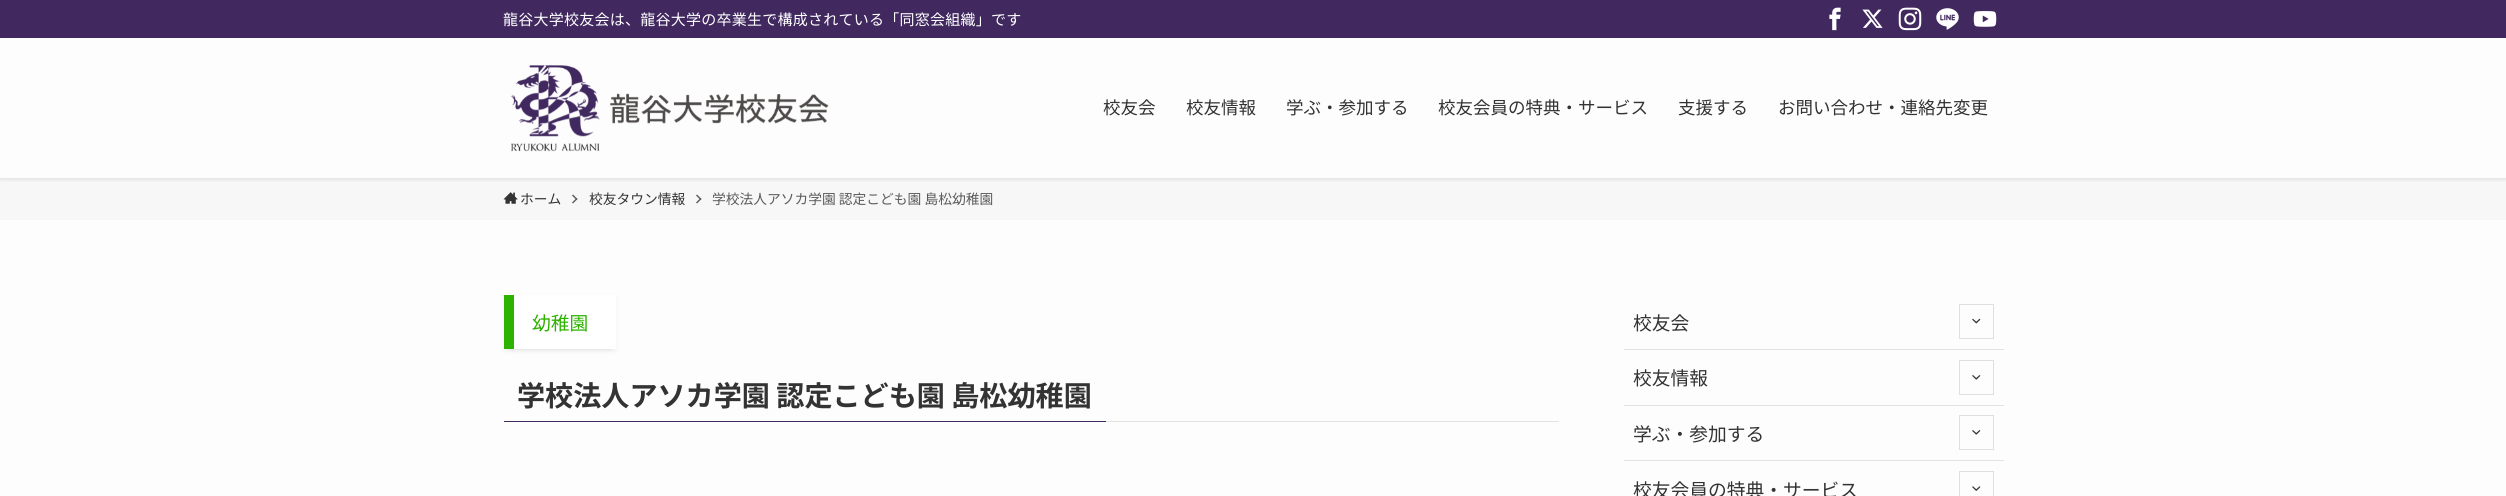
#include <cairo.h>
#include <math.h>
#include <stddef.h>


static void set_color(cairo_t *cr, unsigned color) {
    cairo_set_source_rgb(cr, (color >> 16) / 255.0, (color >> 8 & 255) / 255.0, (color & 255) / 255.0);
}

static void draw_text(cairo_t *cr, double x, double y, const char *s, const char *family, double size, int italic, int bold, unsigned color) {
    cairo_select_font_face(cr, family, italic ? CAIRO_FONT_SLANT_ITALIC : CAIRO_FONT_SLANT_NORMAL,
        bold ? CAIRO_FONT_WEIGHT_BOLD : CAIRO_FONT_WEIGHT_NORMAL);
    cairo_set_font_size(cr, size);
    set_color(cr, color);
    cairo_move_to(cr, x, y);
    cairo_show_text(cr, s);
}

static void draw_spaced(cairo_t *cr, double x, double y, const char *s, double letter, double word) {
    cairo_move_to(cr, x, y);
    while (*s) {
        char ch[5] = {0};
        int n = 0;
        do ch[n++] = *s++; while ((*s & 0xC0) == 0x80);
        cairo_show_text(cr, ch);
        cairo_rel_move_to(cr, letter + word * (*ch == ' '), 0);
    }
}

static void fill_rect(cairo_t *cr, double x, double y, double w, double h, unsigned color) {
    set_color(cr, color);
    cairo_rectangle(cr, x, y, w, h);
    cairo_fill(cr);
}

static void rounded_rect(cairo_t *cr, double x, double y, double w, double h, double r) {
    cairo_new_sub_path(cr);
    cairo_arc(cr, x + w - r, y + h - r, r, 0, M_PI / 2);
    cairo_arc(cr, x + r, y + h - r, r, M_PI / 2, M_PI);
    cairo_arc(cr, x + r, y + r, r, M_PI, 1.5 * M_PI);
    cairo_arc(cr, x + w - r, y + r, r, 1.5 * M_PI, 2 * M_PI);
    cairo_close_path(cr);
}

static void draw_shadow(cairo_t *cr, double x, double y, double w, double h, double r, double blur, double alpha) {
    cairo_push_group_with_content(cr, CAIRO_CONTENT_ALPHA);
    cairo_set_operator(cr, CAIRO_OPERATOR_SOURCE);
    for (int i = 15; i >= -15 && fmin(w, h) + blur * i / 3 > 0; i -= 2) {
        double e = blur * i / 6;
        cairo_set_source_rgba(cr, 0, 0, 0, alpha * erfc((i - 1) / 8.5) / 2);
        rounded_rect(cr, x - e, y - e, w + 2 * e, h + 2 * e, fmax(0, fmin(r + e + blur * .6, fmin(w, h) / 2 + e)));
        cairo_fill(cr);
    }
    cairo_pattern_t *soft = cairo_pop_group(cr);
    cairo_mask(cr, soft);
    cairo_pattern_destroy(soft);
}

static void draw_image(cairo_t *cr, const char *path, double x, double y, double w, double h) {
    cairo_surface_t *image = cairo_image_surface_create_from_png(path);
    cairo_save(cr);
    cairo_set_source_surface(cr, image, x, y);
    cairo_rectangle(cr, x, y, w, h);
    cairo_fill(cr);
    cairo_restore(cr);
    cairo_surface_destroy(image);
}

int main(void) {
    cairo_surface_t *surface = cairo_image_surface_create(CAIRO_FORMAT_RGB24, 2506, 496);
    cairo_t *cr = cairo_create(surface);
    cairo_font_options_t *options = cairo_font_options_create();
    cairo_font_options_set_hint_metrics(options, CAIRO_HINT_METRICS_OFF);
    cairo_font_options_set_hint_style(options, CAIRO_HINT_STYLE_NONE);
    cairo_set_font_options(cr, options);
    cairo_set_miter_limit(cr, 4);
    set_color(cr, 0xFDFDFD);
    cairo_paint(cr);
    fill_rect(cr, 0, 178, 2506, 42, 0xF7F7F7);
    set_color(cr, 0x000000);
    draw_shadow(cr, 0, 1, 2506, 178, 0, 2.5, 0.12);
    fill_rect(cr, 0, 38, 2506, 140, 0xFDFDFD);
    fill_rect(cr, 0, 0, 2506, 38, 0x412960);
    cairo_select_font_face(cr, "Noto Sans JP", CAIRO_FONT_SLANT_NORMAL, CAIRO_FONT_WEIGHT_NORMAL);
    cairo_set_font_size(cr, 15);
    set_color(cr, 0xFFFFFF);
    draw_spaced(cr, 503, 25, "龍谷大学校友会は、龍谷大学の卒業生で構成されている「同窓会組織」です", 0.25, 0);
    draw_image(cr, "assets/img1.png", 1829, 7, 12, 24);
    draw_image(cr, "assets/img2.png", 1862, 9, 21, 19);
    draw_image(cr, "assets/img3.png", 1898, 7, 24, 24);
    draw_image(cr, "assets/img4.png", 1936, 8, 23, 22);
    draw_image(cr, "assets/img5.png", 1973, 11, 24, 16);
    draw_image(cr, "assets/img6.png", 511, 65, 318, 87);
    draw_text(cr, 1103, 114, "校友会", "Noto Sans JP", 17.5, 0, 0, 0x333333);
    draw_text(cr, 1186, 114, "校友情報", "Noto Sans JP", 17.5, 0, 0, 0x333333);
    draw_text(cr, 1286, 114, "学ぶ・参加する", "Noto Sans JP", 17.5, 0, 0, 0x333333);
    draw_text(cr, 1438, 114, "校友会員の特典・サービス", "Noto Sans JP", 17.5, 0, 0, 0x333333);
    draw_text(cr, 1678, 114, "支援する", "Noto Sans JP", 17.5, 0, 0, 0x333333);
    draw_text(cr, 1778, 114, "お問い合わせ・連絡先変更", "Noto Sans JP", 17.5, 0, 0, 0x333333);
    draw_image(cr, "assets/img7.png", 503, 192, 15, 12);
    draw_text(cr, 520, 204, "ホーム", "Noto Sans JP", 13.75, 0, 0, 0x333333);
    set_color(cr, 0x5A5A5A);
    cairo_new_path(cr);
    cairo_move_to(cr, 573, 194.5);
    cairo_line_to(cr, 577.5, 199);
    cairo_line_to(cr, 576.5, 200);
    cairo_line_to(cr, 572, 195.5);
    cairo_close_path(cr);
    cairo_fill(cr);
    cairo_new_path(cr);
    cairo_move_to(cr, 576.5, 198);
    cairo_line_to(cr, 577.5, 199);
    cairo_line_to(cr, 573, 203.5);
    cairo_line_to(cr, 572, 202.5);
    cairo_close_path(cr);
    cairo_fill(cr);
    draw_text(cr, 589, 204, "校友タウン情報", "Noto Sans JP", 13.75, 0, 0, 0x333333);
    set_color(cr, 0x5A5A5A);
    cairo_new_path(cr);
    cairo_move_to(cr, 697, 194.5);
    cairo_line_to(cr, 701.5, 199);
    cairo_line_to(cr, 700.5, 200);
    cairo_line_to(cr, 696, 195.5);
    cairo_close_path(cr);
    cairo_fill(cr);
    cairo_new_path(cr);
    cairo_move_to(cr, 700.5, 198);
    cairo_line_to(cr, 701.5, 199);
    cairo_line_to(cr, 697, 203.5);
    cairo_line_to(cr, 696, 202.5);
    cairo_close_path(cr);
    cairo_fill(cr);
    draw_text(cr, 712, 204, "学校法人アソカ学園 認定こども園 島松幼稚園", "Noto Sans JP", 13.75, 0, 0, 0x5A5A5A);
    set_color(cr, 0x000000);
    draw_shadow(cr, 509, 305, 102, 44, 0, 2.5, 0.1);
    draw_shadow(cr, 504, 298, 112, 53, 0, 2.5, 0.05);
    fill_rect(cr, 514, 295, 102, 54, 0xFFFFFF);
    fill_rect(cr, 504, 295, 10, 54, 0x2DB200);
    draw_text(cr, 532, 330, "幼稚園", "Noto Sans JP", 18.75, 0, 0, 0x2DB200);
    fill_rect(cr, 1106, 421, 453, 1, 0xE3E3E3);
    fill_rect(cr, 504, 421, 602, 1, 0x412960);
    draw_text(cr, 517, 406, "学校法人アソカ学園 認定こども園 島松幼稚園", "Noto Sans JP", 28.1, 0, 1, 0x333333);
    fill_rect(cr, 1624, 349, 380, 1, 0xE3E3E3);
    draw_text(cr, 1633, 330, "校友会", "Noto Sans JP", 18.75, 0, 0, 0x333333);
    draw_image(cr, "assets/img8.png", 1972, 318, 9, 6);
    cairo_rectangle(cr, 1959.5, 304.5, 34, 34);
    set_color(cr, 0xDFDFDF);
    cairo_set_line_width(cr, 1);
    cairo_stroke(cr);
    fill_rect(cr, 1624, 405, 380, 1, 0xE3E3E3);
    draw_text(cr, 1633, 385, "校友情報", "Noto Sans JP", 18.75, 0, 0, 0x333333);
    draw_image(cr, "assets/img9.png", 1972, 375, 9, 5);
    cairo_rectangle(cr, 1959.5, 360.5, 34, 34);
    set_color(cr, 0xDFDFDF);
    cairo_stroke(cr);
    fill_rect(cr, 1624, 460, 380, 1, 0xE3E3E3);
    draw_text(cr, 1633, 441, "学ぶ・参加する", "Noto Sans JP", 18.75, 0, 0, 0x333333);
    draw_image(cr, "assets/img9.png", 1972, 430, 9, 5);
    cairo_rectangle(cr, 1959.5, 415.5, 34, 34);
    set_color(cr, 0xDFDFDF);
    cairo_stroke(cr);
    draw_text(cr, 1633, 497, "校友会員の特典・サービス", "Noto Sans JP", 18.75, 0, 0, 0x333333);
    draw_image(cr, "assets/img10.png", 1972, 486, 9, 5);
    cairo_rectangle(cr, 1959.5, 471.5, 34, 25);
    set_color(cr, 0xDFDFDF);
    cairo_stroke(cr);
    cairo_surface_write_to_png(surface, "output.png");
    cairo_font_options_destroy(options);
    cairo_destroy(cr);
    cairo_surface_destroy(surface);
    return 0;
}
